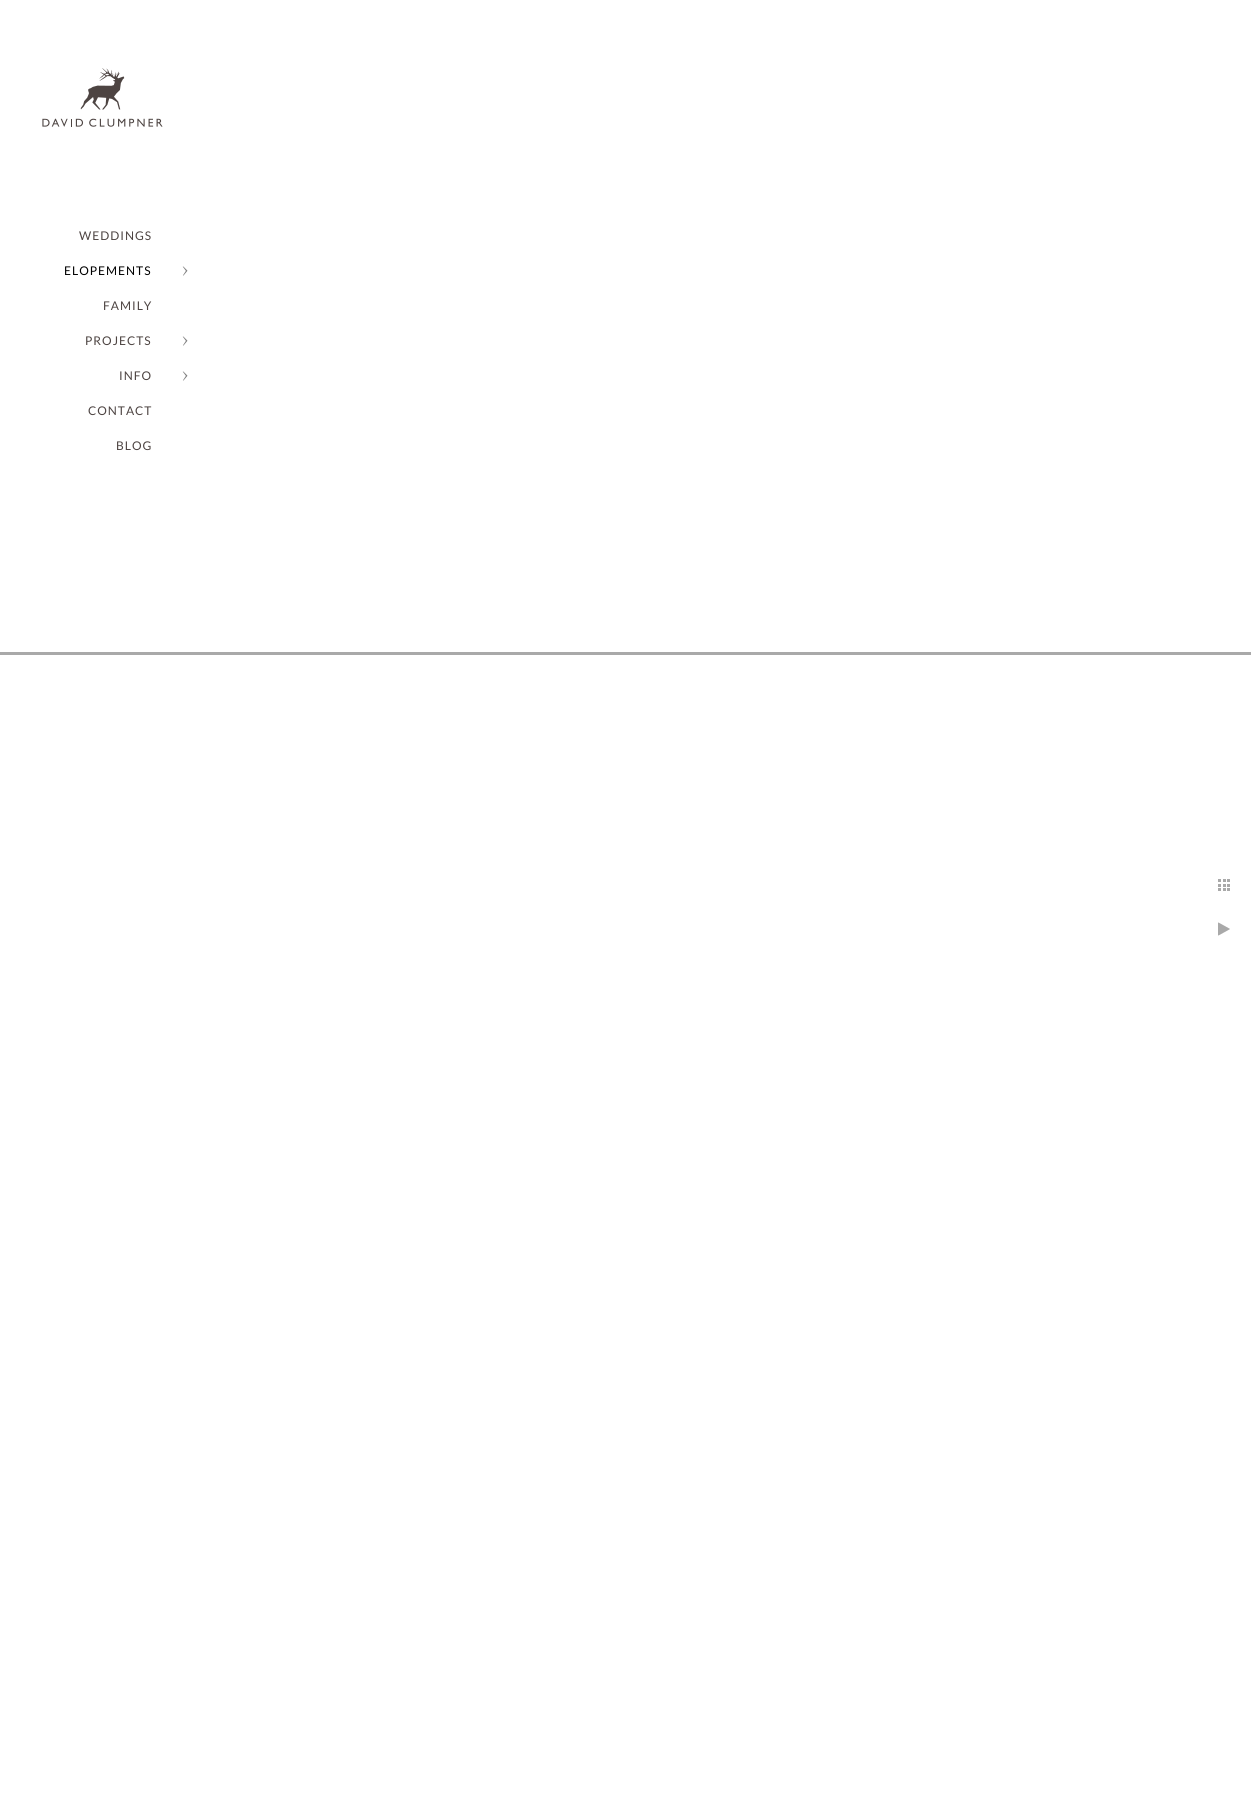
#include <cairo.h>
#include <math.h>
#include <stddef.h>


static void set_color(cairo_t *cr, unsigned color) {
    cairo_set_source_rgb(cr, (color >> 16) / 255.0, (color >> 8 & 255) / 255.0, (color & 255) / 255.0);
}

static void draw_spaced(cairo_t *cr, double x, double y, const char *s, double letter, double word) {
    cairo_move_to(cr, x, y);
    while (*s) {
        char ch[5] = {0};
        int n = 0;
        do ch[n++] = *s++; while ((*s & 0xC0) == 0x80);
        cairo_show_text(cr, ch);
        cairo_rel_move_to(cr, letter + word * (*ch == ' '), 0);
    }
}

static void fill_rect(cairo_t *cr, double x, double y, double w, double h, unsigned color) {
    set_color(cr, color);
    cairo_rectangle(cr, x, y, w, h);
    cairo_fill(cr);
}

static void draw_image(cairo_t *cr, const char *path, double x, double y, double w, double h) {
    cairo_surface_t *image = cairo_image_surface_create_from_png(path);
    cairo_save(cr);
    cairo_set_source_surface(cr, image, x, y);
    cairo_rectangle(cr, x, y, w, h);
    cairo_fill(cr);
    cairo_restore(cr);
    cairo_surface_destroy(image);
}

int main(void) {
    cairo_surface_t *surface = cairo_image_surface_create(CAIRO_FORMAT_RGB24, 1251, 1793);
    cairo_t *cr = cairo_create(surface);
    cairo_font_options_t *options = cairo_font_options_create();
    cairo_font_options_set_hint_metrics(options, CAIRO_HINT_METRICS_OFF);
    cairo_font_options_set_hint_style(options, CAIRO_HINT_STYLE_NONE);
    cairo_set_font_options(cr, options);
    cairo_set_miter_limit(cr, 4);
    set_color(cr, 0xFFFFFF);
    cairo_paint(cr);
    draw_image(cr, "assets/img1.png", 42, 68, 121, 59);
    cairo_select_font_face(cr, "Lato", CAIRO_FONT_SLANT_NORMAL, CAIRO_FONT_WEIGHT_NORMAL);
    cairo_set_font_size(cr, 12);
    set_color(cr, 0x4D4442);
    draw_spaced(cr, 79, 240, "WEDDINGS", 1, 0);
    set_color(cr, 0x000000);
    draw_spaced(cr, 64, 275, "ELOPEMENTS", 1, 0);
    draw_image(cr, "assets/img2.png", 182, 266, 6, 10);
    set_color(cr, 0x4D4442);
    draw_spaced(cr, 103, 310, "FAMILY", 1, 0);
    draw_spaced(cr, 85, 345, "PROJECTS", 1, 0);
    draw_image(cr, "assets/img2.png", 182, 336, 6, 10);
    draw_spaced(cr, 119, 380, "INFO", 1, 0);
    draw_image(cr, "assets/img2.png", 182, 371, 6, 10);
    draw_spaced(cr, 88, 415, "CONTACT", 1, 0);
    draw_spaced(cr, 116, 450, "BLOG", 1, 0);
    fill_rect(cr, 0, 652, 1251, 3, 0xA9A9A9);
    draw_image(cr, "assets/img3.png", 1218, 879, 12, 12);
    draw_image(cr, "assets/img4.png", 1218, 922, 12, 14);
    cairo_surface_write_to_png(surface, "output.png");
    cairo_font_options_destroy(options);
    cairo_destroy(cr);
    cairo_surface_destroy(surface);
    return 0;
}
